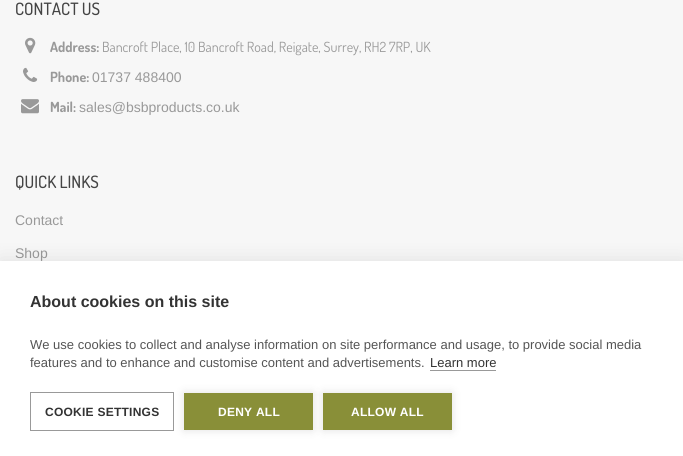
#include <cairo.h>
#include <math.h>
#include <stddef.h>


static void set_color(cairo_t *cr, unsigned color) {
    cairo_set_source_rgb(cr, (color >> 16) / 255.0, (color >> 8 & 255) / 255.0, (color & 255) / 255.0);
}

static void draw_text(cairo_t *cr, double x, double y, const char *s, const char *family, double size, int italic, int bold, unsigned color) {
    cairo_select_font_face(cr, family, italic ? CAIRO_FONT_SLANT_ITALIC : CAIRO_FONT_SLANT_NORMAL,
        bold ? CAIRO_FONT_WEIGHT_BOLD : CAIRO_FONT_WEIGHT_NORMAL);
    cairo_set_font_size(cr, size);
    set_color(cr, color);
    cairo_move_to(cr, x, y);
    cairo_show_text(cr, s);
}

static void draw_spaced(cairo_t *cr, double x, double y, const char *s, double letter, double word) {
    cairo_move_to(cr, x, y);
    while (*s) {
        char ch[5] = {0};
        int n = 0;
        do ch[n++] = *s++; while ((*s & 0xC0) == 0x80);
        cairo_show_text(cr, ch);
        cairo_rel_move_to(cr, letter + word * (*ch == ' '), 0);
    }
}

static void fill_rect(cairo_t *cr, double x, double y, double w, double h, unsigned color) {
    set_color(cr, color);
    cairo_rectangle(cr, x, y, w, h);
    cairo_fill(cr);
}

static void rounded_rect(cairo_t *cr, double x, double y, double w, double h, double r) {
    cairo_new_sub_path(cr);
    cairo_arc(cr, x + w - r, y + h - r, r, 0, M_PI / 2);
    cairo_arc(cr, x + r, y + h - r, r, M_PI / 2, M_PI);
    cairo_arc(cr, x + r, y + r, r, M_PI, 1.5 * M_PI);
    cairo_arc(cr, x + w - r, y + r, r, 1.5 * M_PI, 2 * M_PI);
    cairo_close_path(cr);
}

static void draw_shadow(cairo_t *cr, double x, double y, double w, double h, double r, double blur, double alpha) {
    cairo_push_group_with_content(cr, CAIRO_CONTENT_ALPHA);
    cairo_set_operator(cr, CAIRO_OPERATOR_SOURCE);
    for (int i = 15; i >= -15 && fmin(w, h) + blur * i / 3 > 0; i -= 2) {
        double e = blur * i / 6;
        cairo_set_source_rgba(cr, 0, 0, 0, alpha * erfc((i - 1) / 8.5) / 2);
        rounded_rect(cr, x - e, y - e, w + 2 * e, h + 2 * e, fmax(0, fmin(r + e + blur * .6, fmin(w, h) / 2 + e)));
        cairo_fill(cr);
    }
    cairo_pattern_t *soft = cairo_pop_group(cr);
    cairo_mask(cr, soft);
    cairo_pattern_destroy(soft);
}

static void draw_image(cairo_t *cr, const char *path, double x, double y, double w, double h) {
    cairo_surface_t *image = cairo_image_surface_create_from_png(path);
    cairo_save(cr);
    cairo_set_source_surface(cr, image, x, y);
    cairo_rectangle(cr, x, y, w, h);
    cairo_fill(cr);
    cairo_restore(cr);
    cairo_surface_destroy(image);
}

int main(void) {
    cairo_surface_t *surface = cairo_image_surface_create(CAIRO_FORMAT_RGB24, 683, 456);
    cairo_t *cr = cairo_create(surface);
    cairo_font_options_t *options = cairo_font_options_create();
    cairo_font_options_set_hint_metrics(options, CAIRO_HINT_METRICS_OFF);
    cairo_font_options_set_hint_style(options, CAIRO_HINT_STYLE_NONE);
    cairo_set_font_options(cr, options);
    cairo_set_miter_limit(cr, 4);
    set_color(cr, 0xF7F7F7);
    cairo_paint(cr);
    draw_text(cr, 15, 15, "CONTACT US", "Dosis Medium", 17, 0, 0, 0x444444);
    draw_image(cr, "assets/img1.png", 25, 37, 11, 17);
    draw_text(cr, 50, 52, "Address:", "Dosis", 14, 0, 1, 0x999999);
    draw_text(cr, 102, 52, "Bancroft Place, 10 Bancroft Road, Reigate, Surrey, RH2 7RP, UK", "Dosis", 14, 0, 0, 0x999999);
    draw_image(cr, "assets/img2.png", 23, 67, 15, 15);
    draw_text(cr, 50, 82, "Phone:", "Dosis", 14, 0, 1, 0x999999);
    draw_text(cr, 92, 82, "01737 488400", "Liberation Sans", 14, 0, 0, 0x999999);
    draw_image(cr, "assets/img3.png", 21, 99, 18, 15);
    draw_text(cr, 50, 112, "Mail:", "Dosis", 14, 0, 1, 0x999999);
    draw_text(cr, 79, 112, "sales@bsbproducts.co.uk", "Liberation Sans", 14, 0, 0, 0x999999);
    draw_text(cr, 15, 188, "QUICK LINKS", "Dosis Medium", 17, 0, 0, 0x444444);
    draw_text(cr, 15, 225, "Contact", "Liberation Sans", 14, 0, 0, 0x999999);
    draw_text(cr, 15, 258, "Shop", "Liberation Sans", 14, 0, 0, 0x999999);
    set_color(cr, 0x000000);
    draw_shadow(cr, 0, 261, 683, 195, 0, 10, 0.1);
    fill_rect(cr, 0, 261, 683, 195, 0xFFFFFF);
    draw_text(cr, 30, 307, "About cookies on this site", "Liberation Sans", 16, 0, 1, 0x333333);
    draw_text(cr, 30, 349, "We use cookies to collect and analyse information on site performance and usage, to provide social media", "Liberation Sans", 13, 0, 0, 0x555555);
    draw_text(cr, 30, 367, "features and to enhance and customise content and advertisements.", "Liberation Sans", 13, 0, 0, 0x555555);
    draw_text(cr, 430, 367, "Learn more", "Liberation Sans", 13, 0, 0, 0x333333);
    fill_rect(cr, 430, 370, 66, 1, 0x999999);
    cairo_rectangle(cr, 30.5, 392.5, 143, 38);
    cairo_set_line_width(cr, 1);
    cairo_stroke(cr);
    cairo_select_font_face(cr, "Liberation Sans", CAIRO_FONT_SLANT_NORMAL, CAIRO_FONT_WEIGHT_BOLD);
    cairo_set_font_size(cr, 12);
    set_color(cr, 0x333333);
    draw_spaced(cr, 45, 416, "COOKIE SETTINGS", 0.25, 0);
    set_color(cr, 0x000000);
    draw_shadow(cr, 184, 393, 129, 37, 0, 5, 0.12);
    fill_rect(cr, 184, 393, 129, 37, 0x898F38);
    set_color(cr, 0xFFFFFF);
    draw_spaced(cr, 218, 416, "DENY ALL", 0.25, 0);
    set_color(cr, 0x000000);
    draw_shadow(cr, 323, 393, 129, 37, 0, 5, 0.12);
    fill_rect(cr, 323, 393, 129, 37, 0x898F38);
    set_color(cr, 0xFFFFFF);
    draw_spaced(cr, 351, 416, "ALLOW ALL", 0.25, 0);
    cairo_surface_write_to_png(surface, "output.png");
    cairo_font_options_destroy(options);
    cairo_destroy(cr);
    cairo_surface_destroy(surface);
    return 0;
}
